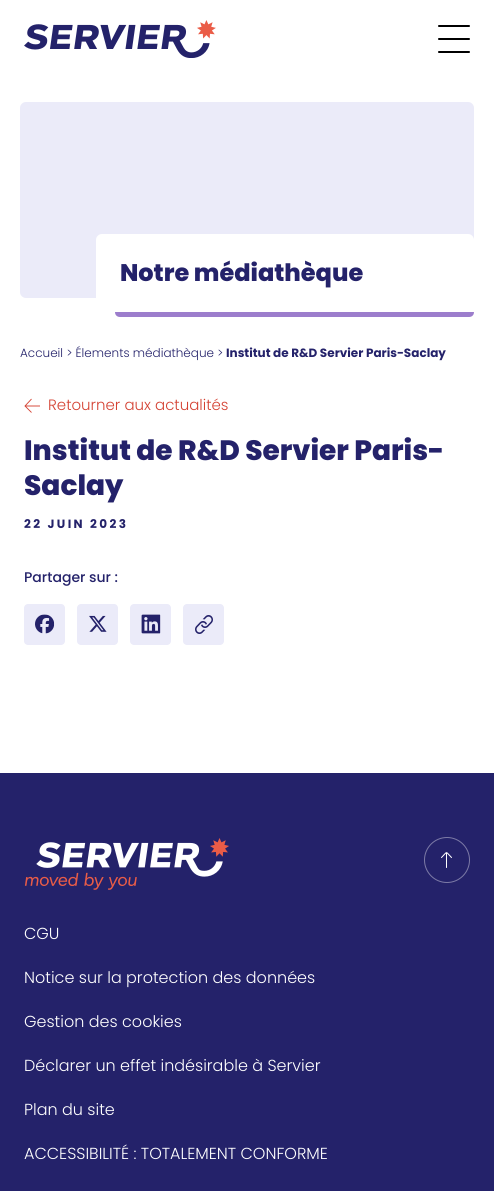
#include <cairo.h>
#include <math.h>
#include <stddef.h>


static void set_color(cairo_t *cr, unsigned color) {
    cairo_set_source_rgb(cr, (color >> 16) / 255.0, (color >> 8 & 255) / 255.0, (color & 255) / 255.0);
}

static void draw_text(cairo_t *cr, double x, double y, const char *s, const char *family, double size, int italic, int bold, unsigned color) {
    cairo_select_font_face(cr, family, italic ? CAIRO_FONT_SLANT_ITALIC : CAIRO_FONT_SLANT_NORMAL,
        bold ? CAIRO_FONT_WEIGHT_BOLD : CAIRO_FONT_WEIGHT_NORMAL);
    cairo_set_font_size(cr, size);
    set_color(cr, color);
    cairo_move_to(cr, x, y);
    cairo_show_text(cr, s);
}

static void draw_spaced(cairo_t *cr, double x, double y, const char *s, double letter, double word) {
    cairo_move_to(cr, x, y);
    while (*s) {
        char ch[5] = {0};
        int n = 0;
        do ch[n++] = *s++; while ((*s & 0xC0) == 0x80);
        cairo_show_text(cr, ch);
        cairo_rel_move_to(cr, letter + word * (*ch == ' '), 0);
    }
}

static void fill_rect(cairo_t *cr, double x, double y, double w, double h, unsigned color) {
    set_color(cr, color);
    cairo_rectangle(cr, x, y, w, h);
    cairo_fill(cr);
}

static void rounded_rect(cairo_t *cr, double x, double y, double w, double h, double r) {
    cairo_new_sub_path(cr);
    cairo_arc(cr, x + w - r, y + h - r, r, 0, M_PI / 2);
    cairo_arc(cr, x + r, y + h - r, r, M_PI / 2, M_PI);
    cairo_arc(cr, x + r, y + r, r, M_PI, 1.5 * M_PI);
    cairo_arc(cr, x + w - r, y + r, r, 1.5 * M_PI, 2 * M_PI);
    cairo_close_path(cr);
}

static void draw_image(cairo_t *cr, const char *path, double x, double y, double w, double h) {
    cairo_surface_t *image = cairo_image_surface_create_from_png(path);
    cairo_save(cr);
    cairo_set_source_surface(cr, image, x, y);
    cairo_rectangle(cr, x, y, w, h);
    cairo_fill(cr);
    cairo_restore(cr);
    cairo_surface_destroy(image);
}

int main(void) {
    cairo_surface_t *surface = cairo_image_surface_create(CAIRO_FORMAT_RGB24, 494, 1191);
    cairo_t *cr = cairo_create(surface);
    cairo_font_options_t *options = cairo_font_options_create();
    cairo_font_options_set_hint_metrics(options, CAIRO_HINT_METRICS_OFF);
    cairo_font_options_set_hint_style(options, CAIRO_HINT_STYLE_NONE);
    cairo_set_font_options(cr, options);
    cairo_set_miter_limit(cr, 4);
    set_color(cr, 0xFFFFFF);
    cairo_paint(cr);
    draw_image(cr, "assets/img1.png", 24, 20, 192, 38);
    set_color(cr, 0x000000);
    rounded_rect(cr, 438, 25, 32, 2, 1);
    cairo_fill(cr);
    rounded_rect(cr, 438, 38, 32, 2, 1);
    cairo_fill(cr);
    rounded_rect(cr, 438, 51, 32, 2, 1);
    cairo_fill(cr);
    set_color(cr, 0xEBEBF9);
    rounded_rect(cr, 20, 102, 454, 196, 6);
    cairo_fill(cr);
    set_color(cr, 0xFFFFFF);
    rounded_rect(cr, 96, 234, 378, 78, 6);
    cairo_fill(cr);
    draw_text(cr, 120, 281, "Notre médiathèque", "Poppins ExtraBold", 24, 0, 0, 0x24226A);
    set_color(cr, 0x9C7DCC);
    cairo_new_path(cr);
    cairo_move_to(cr, 115, 312);
    cairo_line_to(cr, 474, 312);
    cairo_curve_to(cr, 474, 315, 472, 317, 469, 317);
    cairo_line_to(cr, 120, 317);
    cairo_curve_to(cr, 117, 317, 115, 315, 115, 312);
    cairo_close_path(cr);
    cairo_fill(cr);
    draw_text(cr, 20, 357, "Accueil > Élements médiathèque >", "Poppins Light", 12, 0, 0, 0x24226A);
    draw_text(cr, 226, 357, "Institut de R&D Servier Paris-Saclay", "Poppins", 12, 0, 1, 0x24226A);
    cairo_new_path(cr);
    cairo_move_to(cr, 31.5, 399);
    cairo_line_to(cr, 25, 406);
    cairo_line_to(cr, 31.5, 412.5);
    cairo_move_to(cr, 25, 406);
    cairo_line_to(cr, 40, 406);
    set_color(cr, 0xD44233);
    cairo_set_line_width(cr, 0.9);
    cairo_stroke(cr);
    draw_text(cr, 48, 410, "Retourner aux actualités", "Poppins Light", 15, 0, 0, 0xD44233);
    draw_text(cr, 24, 460, "Institut de R&D Servier Paris-", "Poppins ExtraBold", 28, 0, 0, 0x24226A);
    draw_text(cr, 24, 495, "Saclay", "Poppins ExtraBold", 28, 0, 0, 0x24226A);
    cairo_select_font_face(cr, "Poppins", CAIRO_FONT_SLANT_NORMAL, CAIRO_FONT_WEIGHT_BOLD);
    cairo_set_font_size(cr, 12);
    draw_spaced(cr, 24, 528, "22 JUIN 2023", 2.4, 0);
    draw_text(cr, 24, 582, "Partager sur :", "Poppins Medium", 14, 0, 0, 0x24226A);
    set_color(cr, 0xEBEBF9);
    rounded_rect(cr, 24, 604, 41, 41, 4);
    cairo_fill(cr);
    draw_image(cr, "assets/img2.png", 35, 614, 20, 20);
    rounded_rect(cr, 77, 604, 41, 41, 4);
    cairo_fill(cr);
    draw_image(cr, "assets/img3.png", 89, 615, 18, 17);
    rounded_rect(cr, 130, 604, 41, 41, 4);
    cairo_fill(cr);
    draw_image(cr, "assets/img4.png", 141, 614, 20, 20);
    rounded_rect(cr, 183, 604, 41, 41, 4);
    cairo_fill(cr);
    draw_image(cr, "assets/img5.png", 195, 615, 18, 19);
    fill_rect(cr, 0, 773, 494, 418, 0x24226A);
    draw_image(cr, "assets/img6.png", 24, 838, 205, 52);
    cairo_arc(cr, 447, 860, 22.5, 0, 2 * M_PI);
    set_color(cr, 0x7C7AA6);
    cairo_set_line_width(cr, 1);
    cairo_stroke(cr);
    cairo_new_path(cr);
    cairo_move_to(cr, 446.5, 853);
    cairo_line_to(cr, 446.5, 867.5);
    cairo_move_to(cr, 451.5, 857.5);
    cairo_curve_to(cr, 445, 851, 448, 851, 441.5, 857.5);
    set_color(cr, 0xFFFFFF);
    cairo_set_line_cap(cr, CAIRO_LINE_CAP_ROUND);
    cairo_stroke(cr);
    draw_text(cr, 24, 939, "CGU", "Poppins Light", 16, 0, 0, 0xFFFFFF);
    draw_text(cr, 24, 983, "Notice sur la protection des données", "Poppins Light", 16, 0, 0, 0xFFFFFF);
    draw_text(cr, 24, 1027, "Gestion des cookies", "Poppins Light", 16, 0, 0, 0xFFFFFF);
    draw_text(cr, 24, 1071, "Déclarer un effet indésirable à Servier", "Poppins Light", 16, 0, 0, 0xFFFFFF);
    draw_text(cr, 24, 1115, "Plan du site", "Poppins Light", 16, 0, 0, 0xFFFFFF);
    draw_text(cr, 24, 1159, "ACCESSIBILITÉ : TOTALEMENT CONFORME", "Poppins Light", 16, 0, 0, 0xFFFFFF);
    cairo_surface_write_to_png(surface, "output.png");
    cairo_font_options_destroy(options);
    cairo_destroy(cr);
    cairo_surface_destroy(surface);
    return 0;
}
